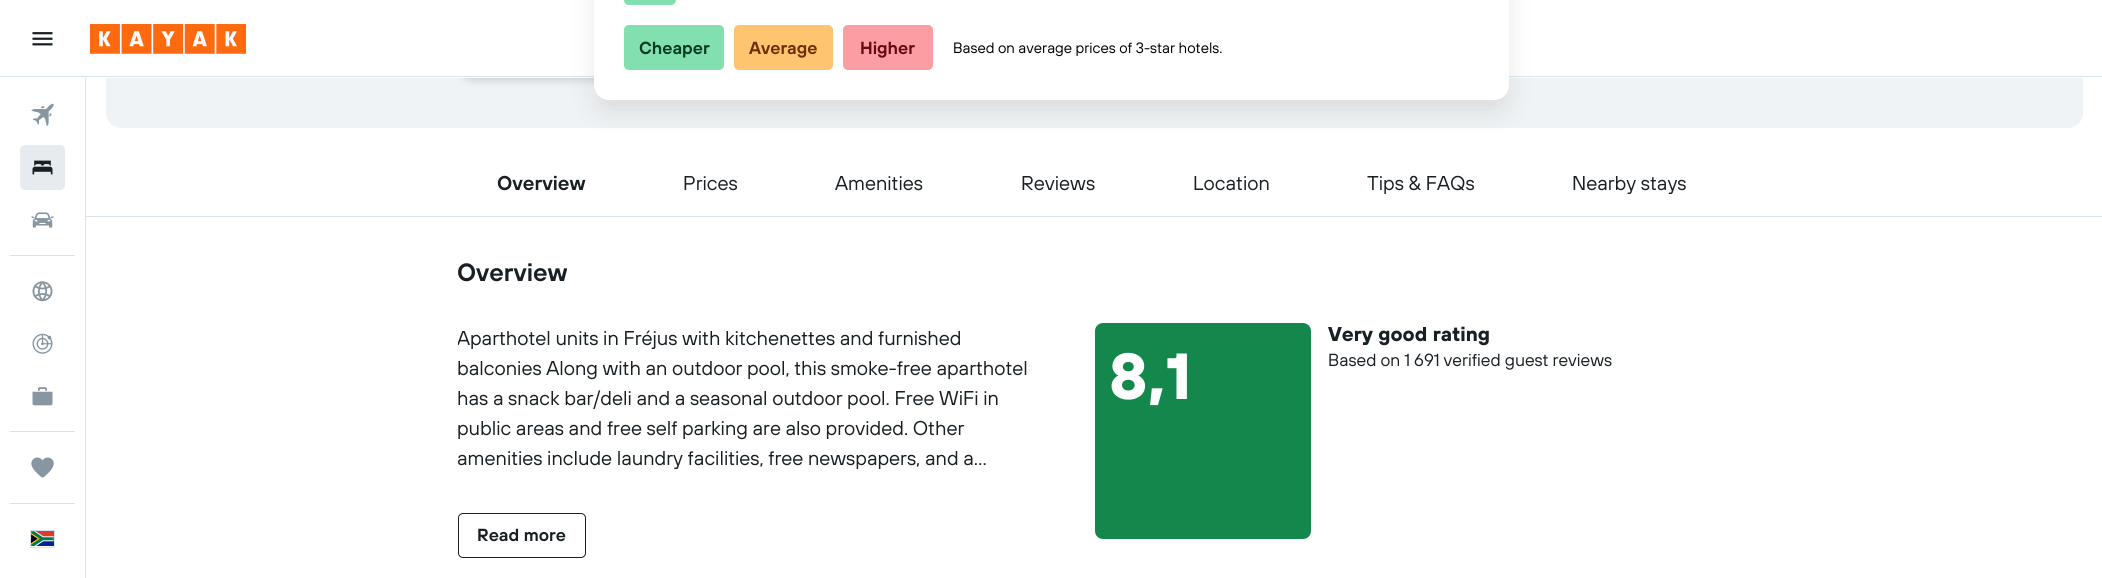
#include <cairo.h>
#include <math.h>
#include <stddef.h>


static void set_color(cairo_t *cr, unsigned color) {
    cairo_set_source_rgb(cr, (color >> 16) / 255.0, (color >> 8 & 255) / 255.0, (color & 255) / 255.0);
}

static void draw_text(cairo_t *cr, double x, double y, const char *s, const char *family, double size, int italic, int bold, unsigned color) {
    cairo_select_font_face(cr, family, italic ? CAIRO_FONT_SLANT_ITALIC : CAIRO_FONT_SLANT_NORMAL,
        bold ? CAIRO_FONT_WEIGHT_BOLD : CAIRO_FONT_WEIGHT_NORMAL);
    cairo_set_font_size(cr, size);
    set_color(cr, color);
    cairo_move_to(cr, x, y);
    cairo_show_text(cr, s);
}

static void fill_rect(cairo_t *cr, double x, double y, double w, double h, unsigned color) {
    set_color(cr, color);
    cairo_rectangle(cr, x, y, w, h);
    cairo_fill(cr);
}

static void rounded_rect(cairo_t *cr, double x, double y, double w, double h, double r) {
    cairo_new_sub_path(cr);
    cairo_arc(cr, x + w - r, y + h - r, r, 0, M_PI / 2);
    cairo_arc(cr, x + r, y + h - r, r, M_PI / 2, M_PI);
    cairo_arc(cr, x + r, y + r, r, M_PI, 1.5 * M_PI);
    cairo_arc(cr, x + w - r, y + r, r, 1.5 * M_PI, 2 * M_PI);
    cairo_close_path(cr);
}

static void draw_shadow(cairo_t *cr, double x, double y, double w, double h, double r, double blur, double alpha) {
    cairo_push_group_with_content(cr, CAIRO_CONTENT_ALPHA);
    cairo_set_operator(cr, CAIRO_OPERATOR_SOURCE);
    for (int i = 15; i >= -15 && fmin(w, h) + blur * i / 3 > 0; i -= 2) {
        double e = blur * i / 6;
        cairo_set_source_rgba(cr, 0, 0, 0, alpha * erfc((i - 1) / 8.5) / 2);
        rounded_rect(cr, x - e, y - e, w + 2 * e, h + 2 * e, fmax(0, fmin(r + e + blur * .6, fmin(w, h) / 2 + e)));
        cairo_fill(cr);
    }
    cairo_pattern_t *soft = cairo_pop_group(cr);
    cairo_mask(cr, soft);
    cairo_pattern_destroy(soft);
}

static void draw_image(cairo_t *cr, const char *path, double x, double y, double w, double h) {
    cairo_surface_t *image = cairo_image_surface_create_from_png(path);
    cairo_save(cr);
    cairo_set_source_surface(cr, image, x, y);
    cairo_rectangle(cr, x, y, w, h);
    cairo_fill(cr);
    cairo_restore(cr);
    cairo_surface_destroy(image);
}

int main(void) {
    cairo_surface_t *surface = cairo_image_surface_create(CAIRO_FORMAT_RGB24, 2102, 578);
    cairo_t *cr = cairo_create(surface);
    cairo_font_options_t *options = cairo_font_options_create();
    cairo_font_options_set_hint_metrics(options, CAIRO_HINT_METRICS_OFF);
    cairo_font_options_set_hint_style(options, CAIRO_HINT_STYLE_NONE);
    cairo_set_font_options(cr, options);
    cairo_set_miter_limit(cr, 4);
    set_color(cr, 0xFFFFFF);
    cairo_paint(cr);
    set_color(cr, 0xF0F3F5);
    rounded_rect(cr, 106, -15, 1977, 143, 15);
    cairo_fill(cr);
    set_color(cr, 0x192024);
    draw_shadow(cr, 458, -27, 617, 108, 15, 4, 0.16);
    fill_rect(cr, 106, 0, 1977, 78, 0xFFFFFF);
    fill_rect(cr, 0, 76, 2102, 1, 0xD9E2E8);
    set_color(cr, 0x192024);
    draw_shadow(cr, 594, -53, 915, 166, 15, 12.5, 0.1);
    set_color(cr, 0xFFFFFF);
    rounded_rect(cr, 594, -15, 915, 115, 15);
    cairo_fill(cr);
    set_color(cr, 0x81DFB0);
    rounded_rect(cr, 624, -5, 52, 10, 5);
    cairo_fill(cr);
    rounded_rect(cr, 624, 25, 100, 45, 5);
    cairo_fill(cr);
    draw_text(cr, 639, 54, "Cheaper", "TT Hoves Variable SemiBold", 17.5, 0, 0, 0x043D20);
    set_color(cr, 0xFFC470);
    rounded_rect(cr, 734, 25, 99, 45, 5);
    cairo_fill(cr);
    draw_text(cr, 749, 54, "Average", "TT Hoves Variable SemiBold", 17.5, 0, 0, 0x6D2F03);
    set_color(cr, 0xFB9DA2);
    rounded_rect(cr, 843, 25, 90, 45, 5);
    cairo_fill(cr);
    draw_text(cr, 860, 54, "Higher", "TT Hoves Variable SemiBold", 17.5, 0, 0, 0x680810);
    draw_text(cr, 953, 53, "Based on average prices of 3-star hotels.", "TT Hoves Variable", 15, 0, 0, 0x000000);
    draw_image(cr, "assets/img1.png", 32, 32, 21, 14);
    draw_image(cr, "assets/img2.png", 90, 24, 156, 30);
    fill_rect(cr, 85, 78, 1, 500, 0xD9E2E8);
    draw_image(cr, "assets/img3.png", 31, 103, 23, 24);
    set_color(cr, 0xE6EBEF);
    rounded_rect(cr, 20, 145, 45, 45, 5);
    cairo_fill(cr);
    draw_image(cr, "assets/img4.png", 32, 160, 21, 15);
    draw_image(cr, "assets/img5.png", 31, 212, 23, 16);
    fill_rect(cr, 10, 255, 65, 1, 0xD9E2E8);
    draw_image(cr, "assets/img6.png", 32, 281, 21, 21);
    draw_image(cr, "assets/img7.png", 32, 333, 21, 21);
    draw_image(cr, "assets/img8.png", 32, 387, 21, 19);
    fill_rect(cr, 10, 431, 65, 1, 0xD9E2E8);
    draw_image(cr, "assets/img9.png", 31, 457, 23, 21);
    fill_rect(cr, 10, 503, 65, 1, 0xD9E2E8);
    cairo_rectangle(cr, 30.5, 530.5, 24, 17);
    cairo_set_line_width(cr, 1);
    cairo_stroke(cr);
    draw_image(cr, "assets/img10.png", 31, 531, 23, 15);
    fill_rect(cr, 86, 216, 2016, 1, 0xD9E2E8);
    draw_text(cr, 497, 190, "Overview", "TT Hoves Variable SemiBold", 20, 0, 0, 0x192024);
    draw_text(cr, 683, 190, "Prices", "TT Hoves Variable", 20, 0, 0, 0x192024);
    draw_text(cr, 835, 190, "Amenities", "TT Hoves Variable", 20, 0, 0, 0x192024);
    draw_text(cr, 1021, 190, "Reviews", "TT Hoves Variable", 20, 0, 0, 0x192024);
    draw_text(cr, 1193, 190, "Location", "TT Hoves Variable", 20, 0, 0, 0x192024);
    draw_text(cr, 1367, 190, "Tips & FAQs", "TT Hoves Variable", 20, 0, 0, 0x192024);
    draw_text(cr, 1572, 190, "Nearby stays", "TT Hoves Variable", 20, 0, 0, 0x192024);
    draw_text(cr, 457, 281, "Overview", "TT Hoves Variable SemiBold", 25, 0, 0, 0x192024);
    cairo_save(cr);
    cairo_rectangle(cr, 458, 323, 575, 150);
    cairo_clip(cr);
    draw_text(cr, 457, 345, "Aparthotel units in Fréjus with kitchenettes and furnished", "TT Hoves Variable", 20, 0, 0, 0x192024);
    cairo_restore(cr);
    draw_text(cr, 457, 375, "balconies Along with an outdoor pool, this smoke-free aparthotel", "TT Hoves Variable", 20, 0, 0, 0x192024);
    draw_text(cr, 457, 405, "has a snack bar/deli and a seasonal outdoor pool. Free WiFi in", "TT Hoves Variable", 20, 0, 0, 0x192024);
    draw_text(cr, 457, 435, "public areas and free self parking are also provided. Other", "TT Hoves Variable", 20, 0, 0, 0x192024);
    draw_text(cr, 457, 465, "amenities include laundry facilities, free newspapers, and a…", "TT Hoves Variable", 20, 0, 0, 0x192024);
    rounded_rect(cr, 458.5, 513.5, 127, 44, 4.5);
    cairo_stroke(cr);
    draw_text(cr, 477, 541, "Read more", "TT Hoves Variable SemiBold", 17.5, 0, 0, 0x192024);
    set_color(cr, 0x14884C);
    rounded_rect(cr, 1095, 323, 216, 216, 8);
    cairo_fill(cr);
    draw_text(cr, 1109, 399, "8,1", "TT Hoves Variable", 65, 0, 1, 0xFFFFFF);
    draw_text(cr, 1328, 341, "Very good rating", "TT Hoves Variable", 20, 0, 1, 0x192024);
    draw_text(cr, 1328, 366, "Based on 1 691 verified guest reviews", "TT Hoves Variable", 17.5, 0, 0, 0x192024);
    cairo_surface_write_to_png(surface, "output.png");
    cairo_font_options_destroy(options);
    cairo_destroy(cr);
    cairo_surface_destroy(surface);
    return 0;
}
